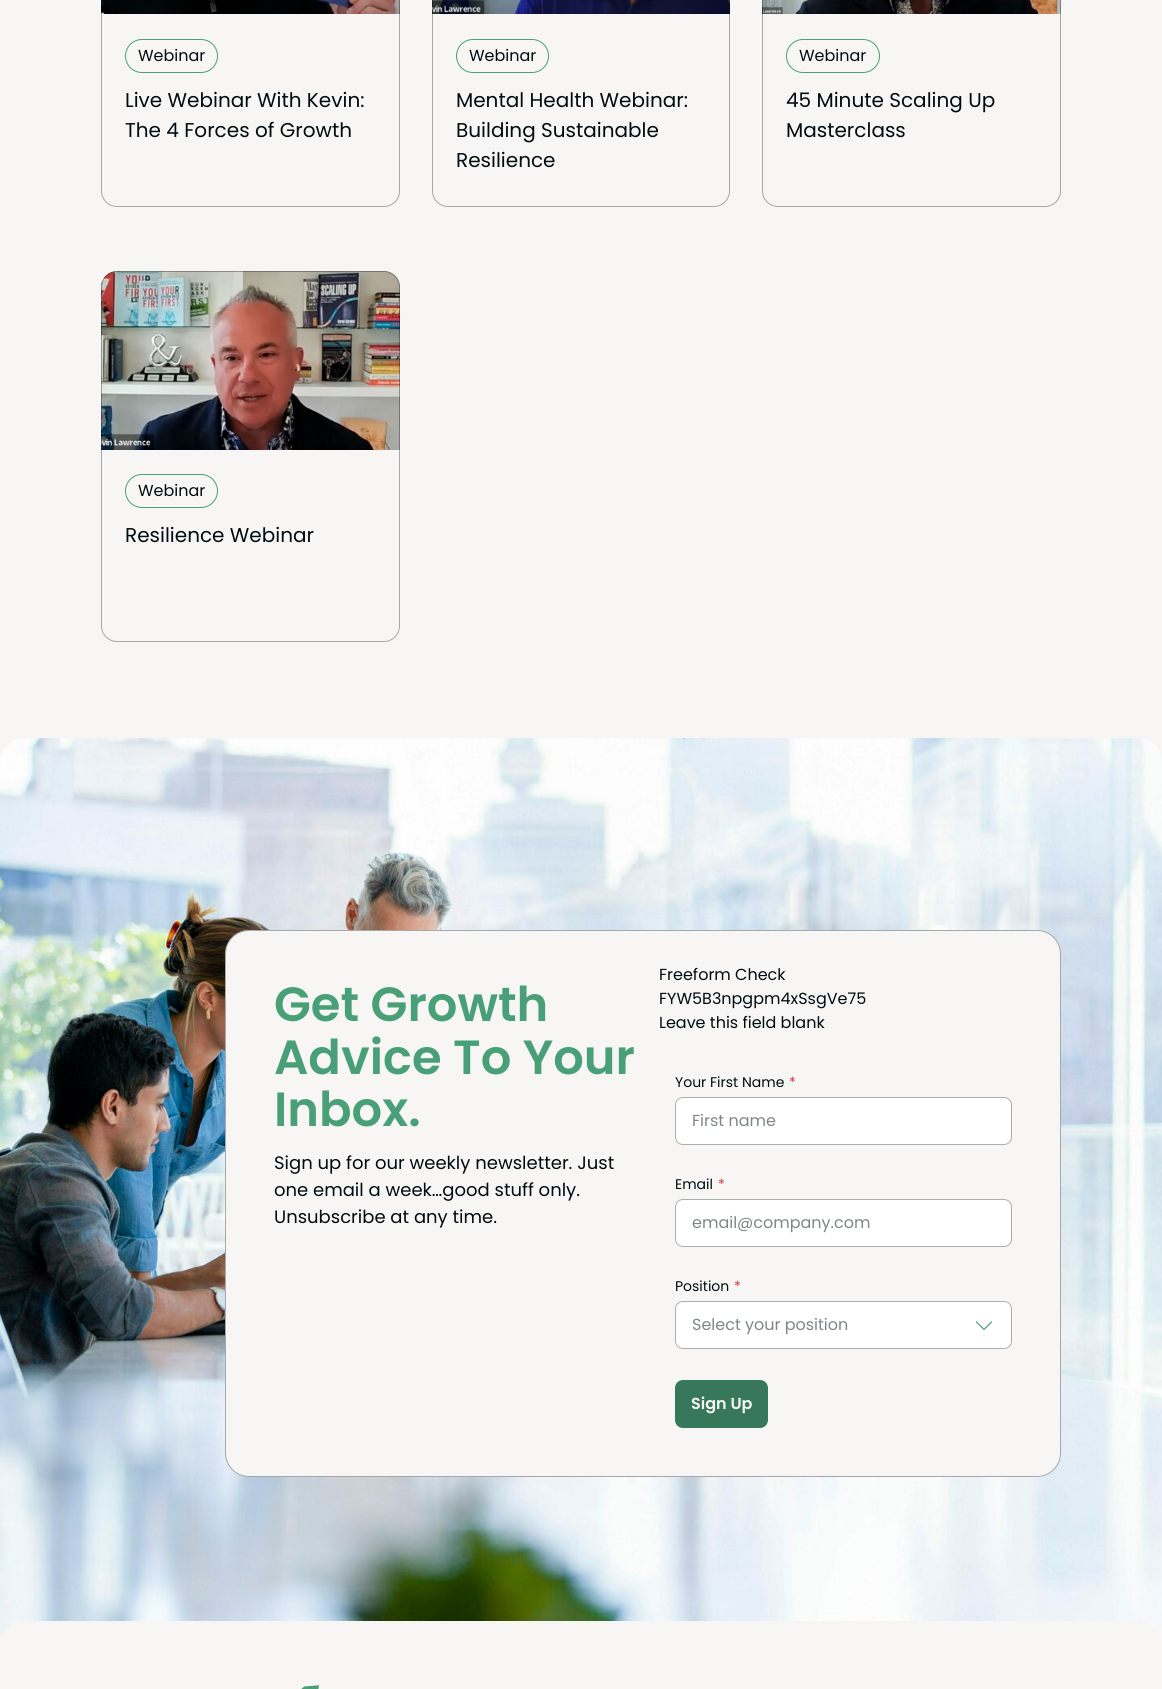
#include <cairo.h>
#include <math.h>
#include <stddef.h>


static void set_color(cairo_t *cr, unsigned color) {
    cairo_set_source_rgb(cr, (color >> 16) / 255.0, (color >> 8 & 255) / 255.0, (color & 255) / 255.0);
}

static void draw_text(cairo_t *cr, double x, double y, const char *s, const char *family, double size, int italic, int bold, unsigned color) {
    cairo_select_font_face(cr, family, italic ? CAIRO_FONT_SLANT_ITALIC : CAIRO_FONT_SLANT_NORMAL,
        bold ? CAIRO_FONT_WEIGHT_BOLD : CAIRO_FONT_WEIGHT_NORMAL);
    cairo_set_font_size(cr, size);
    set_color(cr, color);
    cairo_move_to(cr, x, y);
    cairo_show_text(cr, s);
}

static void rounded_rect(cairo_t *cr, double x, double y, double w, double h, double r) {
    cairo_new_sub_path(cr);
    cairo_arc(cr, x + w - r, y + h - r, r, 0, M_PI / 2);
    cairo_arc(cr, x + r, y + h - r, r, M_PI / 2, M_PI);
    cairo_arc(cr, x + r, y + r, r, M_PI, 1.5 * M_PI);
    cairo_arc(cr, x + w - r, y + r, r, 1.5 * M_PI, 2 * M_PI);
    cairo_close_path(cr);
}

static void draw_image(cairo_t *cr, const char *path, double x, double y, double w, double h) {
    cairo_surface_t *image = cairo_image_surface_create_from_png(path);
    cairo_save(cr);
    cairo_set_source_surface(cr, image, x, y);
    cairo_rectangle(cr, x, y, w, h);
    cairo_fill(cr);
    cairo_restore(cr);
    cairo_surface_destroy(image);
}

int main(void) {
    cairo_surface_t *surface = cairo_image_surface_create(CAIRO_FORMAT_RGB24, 1162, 1689);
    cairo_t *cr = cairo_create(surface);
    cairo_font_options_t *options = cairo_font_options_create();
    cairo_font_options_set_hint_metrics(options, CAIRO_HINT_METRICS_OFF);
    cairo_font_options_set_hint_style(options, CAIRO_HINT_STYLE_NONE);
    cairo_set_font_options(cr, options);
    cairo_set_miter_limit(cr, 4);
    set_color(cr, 0xF7F6F5);
    cairo_paint(cr);
    draw_image(cr, "assets/img1.png", 101, 0, 299, 14);
    rounded_rect(cr, 125.5, 39.5, 92, 33, 16.5);
    set_color(cr, 0x49A078);
    cairo_set_line_width(cr, 1);
    cairo_stroke(cr);
    rounded_rect(cr, 101.5, -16.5, 298, 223, 15.5);
    cairo_set_source_rgba(cr, 0, 0.047, 0.067, 0.33);
    cairo_stroke(cr);
    draw_text(cr, 138, 61, "Webinar", "Poppins", 16, 0, 0, 0x000C11);
    draw_text(cr, 125, 107, "Live Webinar With Kevin:", "Poppins", 20, 0, 0, 0x000C11);
    draw_text(cr, 125, 137, "The 4 Forces of Growth", "Poppins", 20, 0, 0, 0x000C11);
    draw_image(cr, "assets/img2.png", 432, 0, 298, 14);
    rounded_rect(cr, 456.5, 39.5, 92, 33, 16.5);
    set_color(cr, 0x49A078);
    cairo_stroke(cr);
    rounded_rect(cr, 432.5, -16.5, 297, 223, 15.5);
    cairo_set_source_rgba(cr, 0, 0.047, 0.067, 0.33);
    cairo_stroke(cr);
    draw_text(cr, 469, 61, "Webinar", "Poppins", 16, 0, 0, 0x000C11);
    draw_text(cr, 456, 107, "Mental Health Webinar:", "Poppins", 20, 0, 0, 0x000C11);
    draw_text(cr, 456, 137, "Building Sustainable", "Poppins", 20, 0, 0, 0x000C11);
    draw_text(cr, 456, 167, "Resilience", "Poppins", 20, 0, 0, 0x000C11);
    draw_image(cr, "assets/img3.png", 762, 0, 299, 14);
    rounded_rect(cr, 786.5, 39.5, 93, 33, 16.5);
    set_color(cr, 0x49A078);
    cairo_stroke(cr);
    rounded_rect(cr, 762.5, -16.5, 298, 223, 15.5);
    cairo_set_source_rgba(cr, 0, 0.047, 0.067, 0.33);
    cairo_stroke(cr);
    draw_text(cr, 799, 61, "Webinar", "Poppins", 16, 0, 0, 0x000C11);
    draw_text(cr, 786, 107, "45 Minute Scaling Up", "Poppins", 20, 0, 0, 0x000C11);
    draw_text(cr, 786, 137, "Masterclass", "Poppins", 20, 0, 0, 0x000C11);
    draw_image(cr, "assets/img4.png", 101, 271, 299, 179);
    rounded_rect(cr, 125.5, 474.5, 92, 33, 16.5);
    set_color(cr, 0x49A078);
    cairo_stroke(cr);
    rounded_rect(cr, 101.5, 271.5, 298, 370, 15.5);
    cairo_set_source_rgba(cr, 0, 0.047, 0.067, 0.33);
    cairo_stroke(cr);
    draw_text(cr, 138, 496, "Webinar", "Poppins", 16, 0, 0, 0x000C11);
    draw_text(cr, 125, 542, "Resilience Webinar", "Poppins", 20, 0, 0, 0x000C11);
    draw_image(cr, "assets/img5.png", 0, 738, 1162, 907);
    set_color(cr, 0xF7F6F5);
    rounded_rect(cr, 225, 930, 836, 547, 24);
    cairo_fill(cr);
    rounded_rect(cr, 225.5, 930.5, 835, 546, 23.5);
    cairo_set_source_rgba(cr, 0, 0.047, 0.067, 0.33);
    cairo_stroke(cr);
    draw_text(cr, 274, 1021, "Get Growth", "Poppins SemiBold", 48, 0, 0, 0x49A078);
    draw_text(cr, 274, 1074, "Advice To Your", "Poppins SemiBold", 48, 0, 0, 0x49A078);
    draw_text(cr, 274, 1126, "Inbox.", "Poppins SemiBold", 48, 0, 0, 0x49A078);
    draw_text(cr, 274, 1169, "Sign up for our weekly newsletter. Just", "Poppins", 18, 0, 0, 0x000C11);
    draw_text(cr, 274, 1196, "one email a week…good stuff only.", "Poppins", 18, 0, 0, 0x000C11);
    draw_text(cr, 274, 1223, "Unsubscribe at any time.", "Poppins", 18, 0, 0, 0x000C11);
    draw_text(cr, 659, 980, "Freeform Check", "Poppins", 16, 0, 0, 0x000C11);
    draw_text(cr, 659, 1004, "FYW5B3npgpm4xSsgVe75", "Poppins", 16, 0, 0, 0x000C11);
    draw_text(cr, 659, 1028, "Leave this field blank", "Poppins", 16, 0, 0, 0x000C11);
    draw_text(cr, 675, 1087, "Your First Name", "Poppins", 14, 0, 0, 0x000C11);
    draw_text(cr, 789, 1087, "*", "Poppins", 14, 0, 0, 0xDC3545);
    set_color(cr, 0xFFFFFF);
    rounded_rect(cr, 675, 1097, 337, 48, 8);
    cairo_fill(cr);
    rounded_rect(cr, 675.5, 1097.5, 336, 47, 7.5);
    cairo_set_source_rgba(cr, 0, 0.047, 0.067, 0.33);
    cairo_stroke(cr);
    draw_text(cr, 692, 1126, "First name", "Poppins", 16, 0, 0, 0x808688);
    draw_text(cr, 675, 1189, "Email", "Poppins", 14, 0, 0, 0x000C11);
    draw_text(cr, 718, 1189, "*", "Poppins", 14, 0, 0, 0xDC3545);
    set_color(cr, 0xFFFFFF);
    rounded_rect(cr, 675, 1199, 337, 48, 8);
    cairo_fill(cr);
    rounded_rect(cr, 675.5, 1199.5, 336, 47, 7.5);
    cairo_set_source_rgba(cr, 0, 0.047, 0.067, 0.33);
    cairo_stroke(cr);
    draw_text(cr, 692, 1228, "email@company.com", "Poppins", 16, 0, 0, 0x808688);
    draw_text(cr, 675, 1291, "Position", "Poppins", 14, 0, 0, 0x000C11);
    draw_text(cr, 734, 1291, "*", "Poppins", 14, 0, 0, 0xDC3545);
    set_color(cr, 0xFFFFFF);
    rounded_rect(cr, 675, 1301, 337, 48, 8);
    cairo_fill(cr);
    rounded_rect(cr, 675.5, 1301.5, 336, 47, 7.5);
    cairo_set_source_rgba(cr, 0, 0.047, 0.067, 0.33);
    cairo_stroke(cr);
    draw_text(cr, 692, 1330, "Select your position", "Poppins", 16, 0, 0, 0x808688);
    cairo_new_path(cr);
    cairo_move_to(cr, 991.5, 1322);
    cairo_line_to(cr, 984, 1329.5);
    cairo_line_to(cr, 976.5, 1322);
    set_color(cr, 0x49A078);
    cairo_set_line_width(cr, 1.2);
    cairo_set_line_cap(cr, CAIRO_LINE_CAP_ROUND);
    cairo_set_line_join(cr, CAIRO_LINE_JOIN_ROUND);
    cairo_stroke(cr);
    set_color(cr, 0x37785A);
    rounded_rect(cr, 675, 1380, 93, 48, 8);
    cairo_fill(cr);
    draw_text(cr, 691, 1409, "Sign Up", "Poppins SemiBold", 16, 0, 0, 0xF7F6F5);
    cairo_new_path(cr);
    cairo_move_to(cr, 24, 1621);
    cairo_line_to(cr, 1138, 1621);
    cairo_curve_to(cr, 1151.5, 1621, 1162, 1631.5, 1162, 1645);
    cairo_line_to(cr, 1162, 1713);
    cairo_line_to(cr, 0, 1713);
    cairo_line_to(cr, 0, 1645);
    cairo_curve_to(cr, 0, 1631.5, 10.5, 1621, 24, 1621);
    cairo_close_path(cr);
    cairo_fill(cr);
    draw_image(cr, "assets/img6.png", 301, 1685, 19, 4);
    cairo_surface_write_to_png(surface, "output.png");
    cairo_font_options_destroy(options);
    cairo_destroy(cr);
    cairo_surface_destroy(surface);
    return 0;
}
